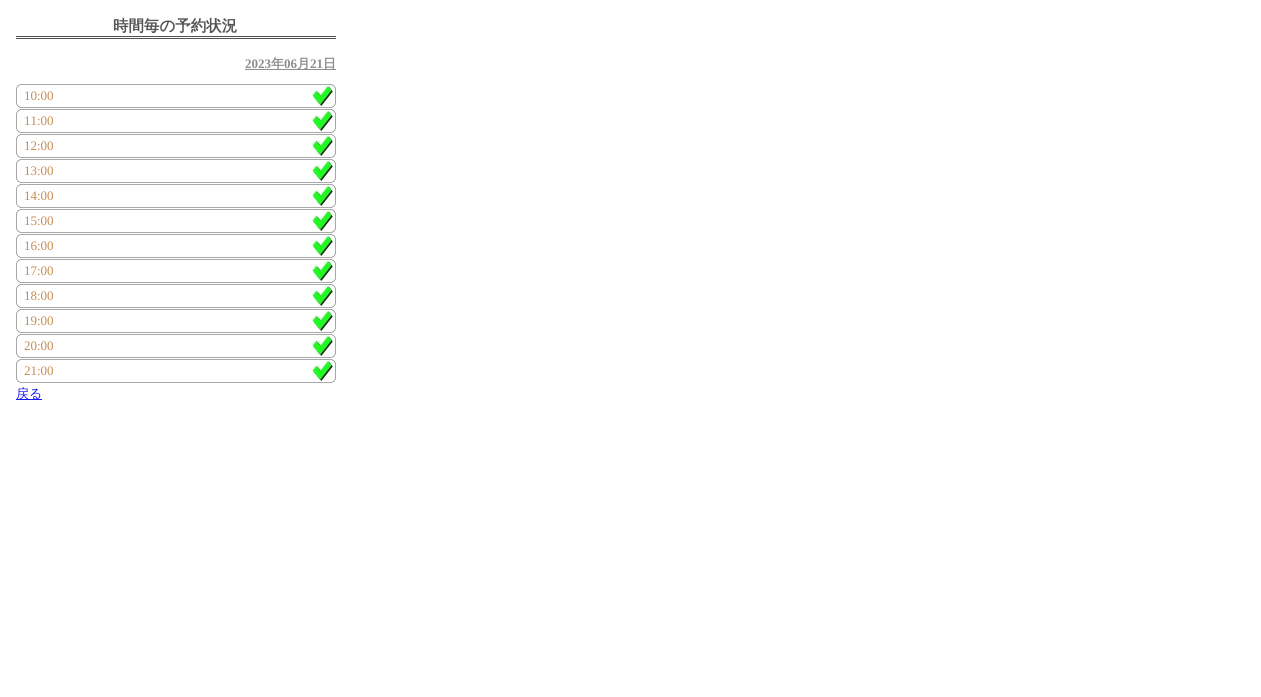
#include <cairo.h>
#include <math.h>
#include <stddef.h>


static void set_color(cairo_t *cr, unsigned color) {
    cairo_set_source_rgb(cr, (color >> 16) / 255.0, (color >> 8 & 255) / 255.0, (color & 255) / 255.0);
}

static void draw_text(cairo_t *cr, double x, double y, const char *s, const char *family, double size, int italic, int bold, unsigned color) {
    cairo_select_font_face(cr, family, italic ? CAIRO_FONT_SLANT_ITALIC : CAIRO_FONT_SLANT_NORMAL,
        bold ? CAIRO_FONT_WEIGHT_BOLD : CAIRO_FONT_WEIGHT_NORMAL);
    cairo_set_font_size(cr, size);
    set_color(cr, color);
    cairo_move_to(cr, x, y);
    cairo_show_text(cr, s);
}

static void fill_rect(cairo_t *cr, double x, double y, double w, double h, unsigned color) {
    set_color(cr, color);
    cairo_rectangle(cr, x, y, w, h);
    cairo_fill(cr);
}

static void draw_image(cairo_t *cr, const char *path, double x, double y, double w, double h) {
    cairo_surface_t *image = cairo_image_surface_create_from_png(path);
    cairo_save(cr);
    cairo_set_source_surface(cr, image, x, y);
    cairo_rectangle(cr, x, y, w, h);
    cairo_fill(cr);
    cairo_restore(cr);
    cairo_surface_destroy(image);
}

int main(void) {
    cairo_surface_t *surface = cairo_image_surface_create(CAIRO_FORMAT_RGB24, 1261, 697);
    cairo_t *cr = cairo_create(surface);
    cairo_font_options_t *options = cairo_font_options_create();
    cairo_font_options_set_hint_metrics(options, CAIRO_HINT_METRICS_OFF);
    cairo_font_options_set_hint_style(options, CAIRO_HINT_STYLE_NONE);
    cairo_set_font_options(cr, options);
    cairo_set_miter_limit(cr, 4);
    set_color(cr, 0xFFFFFF);
    cairo_paint(cr);
    fill_rect(cr, 16, 36, 320, 1, 0x535353);
    fill_rect(cr, 16, 38, 320, 1, 0x535353);
    draw_text(cr, 113, 31, "時間毎の予約状況", "WenQuanYi Zen Hei", 15.5, 0, 1, 0x535353);
    draw_text(cr, 245, 68, "2023", "Liberation Serif", 13, 0, 1, 0x8D8D8D);
    fill_rect(cr, 245, 69, 91, 1, 0x8D8D8D);
    draw_text(cr, 271, 68, "年", "WenQuanYi Zen Hei", 13, 0, 1, 0x8D8D8D);
    draw_text(cr, 284, 68, "06", "Liberation Serif", 13, 0, 1, 0x8D8D8D);
    draw_text(cr, 297, 68, "月", "WenQuanYi Zen Hei", 13, 0, 1, 0x8D8D8D);
    draw_text(cr, 310, 68, "21", "Liberation Serif", 13, 0, 1, 0x8D8D8D);
    draw_text(cr, 323, 68, "日", "WenQuanYi Zen Hei", 13, 0, 1, 0x8D8D8D);
    draw_image(cr, "assets/img1.png", 16, 84, 320, 24);
    draw_text(cr, 24, 100, "10:00", "Liberation Serif", 13, 0, 0, 0xC68D53);
    draw_image(cr, "assets/img1.png", 16, 109, 320, 24);
    draw_text(cr, 24, 125, "11:00", "Liberation Serif", 13, 0, 0, 0xC68D53);
    draw_image(cr, "assets/img1.png", 16, 134, 320, 24);
    draw_text(cr, 24, 150, "12:00", "Liberation Serif", 13, 0, 0, 0xC68D53);
    draw_image(cr, "assets/img1.png", 16, 159, 320, 24);
    draw_text(cr, 24, 175, "13:00", "Liberation Serif", 13, 0, 0, 0xC68D53);
    draw_image(cr, "assets/img1.png", 16, 184, 320, 24);
    draw_text(cr, 24, 200, "14:00", "Liberation Serif", 13, 0, 0, 0xC68D53);
    draw_image(cr, "assets/img1.png", 16, 209, 320, 24);
    draw_text(cr, 24, 225, "15:00", "Liberation Serif", 13, 0, 0, 0xC68D53);
    draw_image(cr, "assets/img1.png", 16, 234, 320, 24);
    draw_text(cr, 24, 250, "16:00", "Liberation Serif", 13, 0, 0, 0xC68D53);
    draw_image(cr, "assets/img1.png", 16, 259, 320, 24);
    draw_text(cr, 24, 275, "17:00", "Liberation Serif", 13, 0, 0, 0xC68D53);
    draw_image(cr, "assets/img1.png", 16, 284, 320, 24);
    draw_text(cr, 24, 300, "18:00", "Liberation Serif", 13, 0, 0, 0xC68D53);
    draw_image(cr, "assets/img1.png", 16, 309, 320, 24);
    draw_text(cr, 24, 325, "19:00", "Liberation Serif", 13, 0, 0, 0xC68D53);
    draw_image(cr, "assets/img1.png", 16, 334, 320, 24);
    draw_text(cr, 24, 350, "20:00", "Liberation Serif", 13, 0, 0, 0xC68D53);
    draw_image(cr, "assets/img1.png", 16, 359, 320, 24);
    draw_text(cr, 24, 375, "21:00", "Liberation Serif", 13, 0, 0, 0xC68D53);
    fill_rect(cr, 16, 399, 26, 1, 0x1A1AF0);
    draw_text(cr, 16, 398, "戻る", "WenQuanYi Zen Hei Medium", 13, 0, 0, 0x1A1AF0);
    cairo_surface_write_to_png(surface, "output.png");
    cairo_font_options_destroy(options);
    cairo_destroy(cr);
    cairo_surface_destroy(surface);
    return 0;
}
